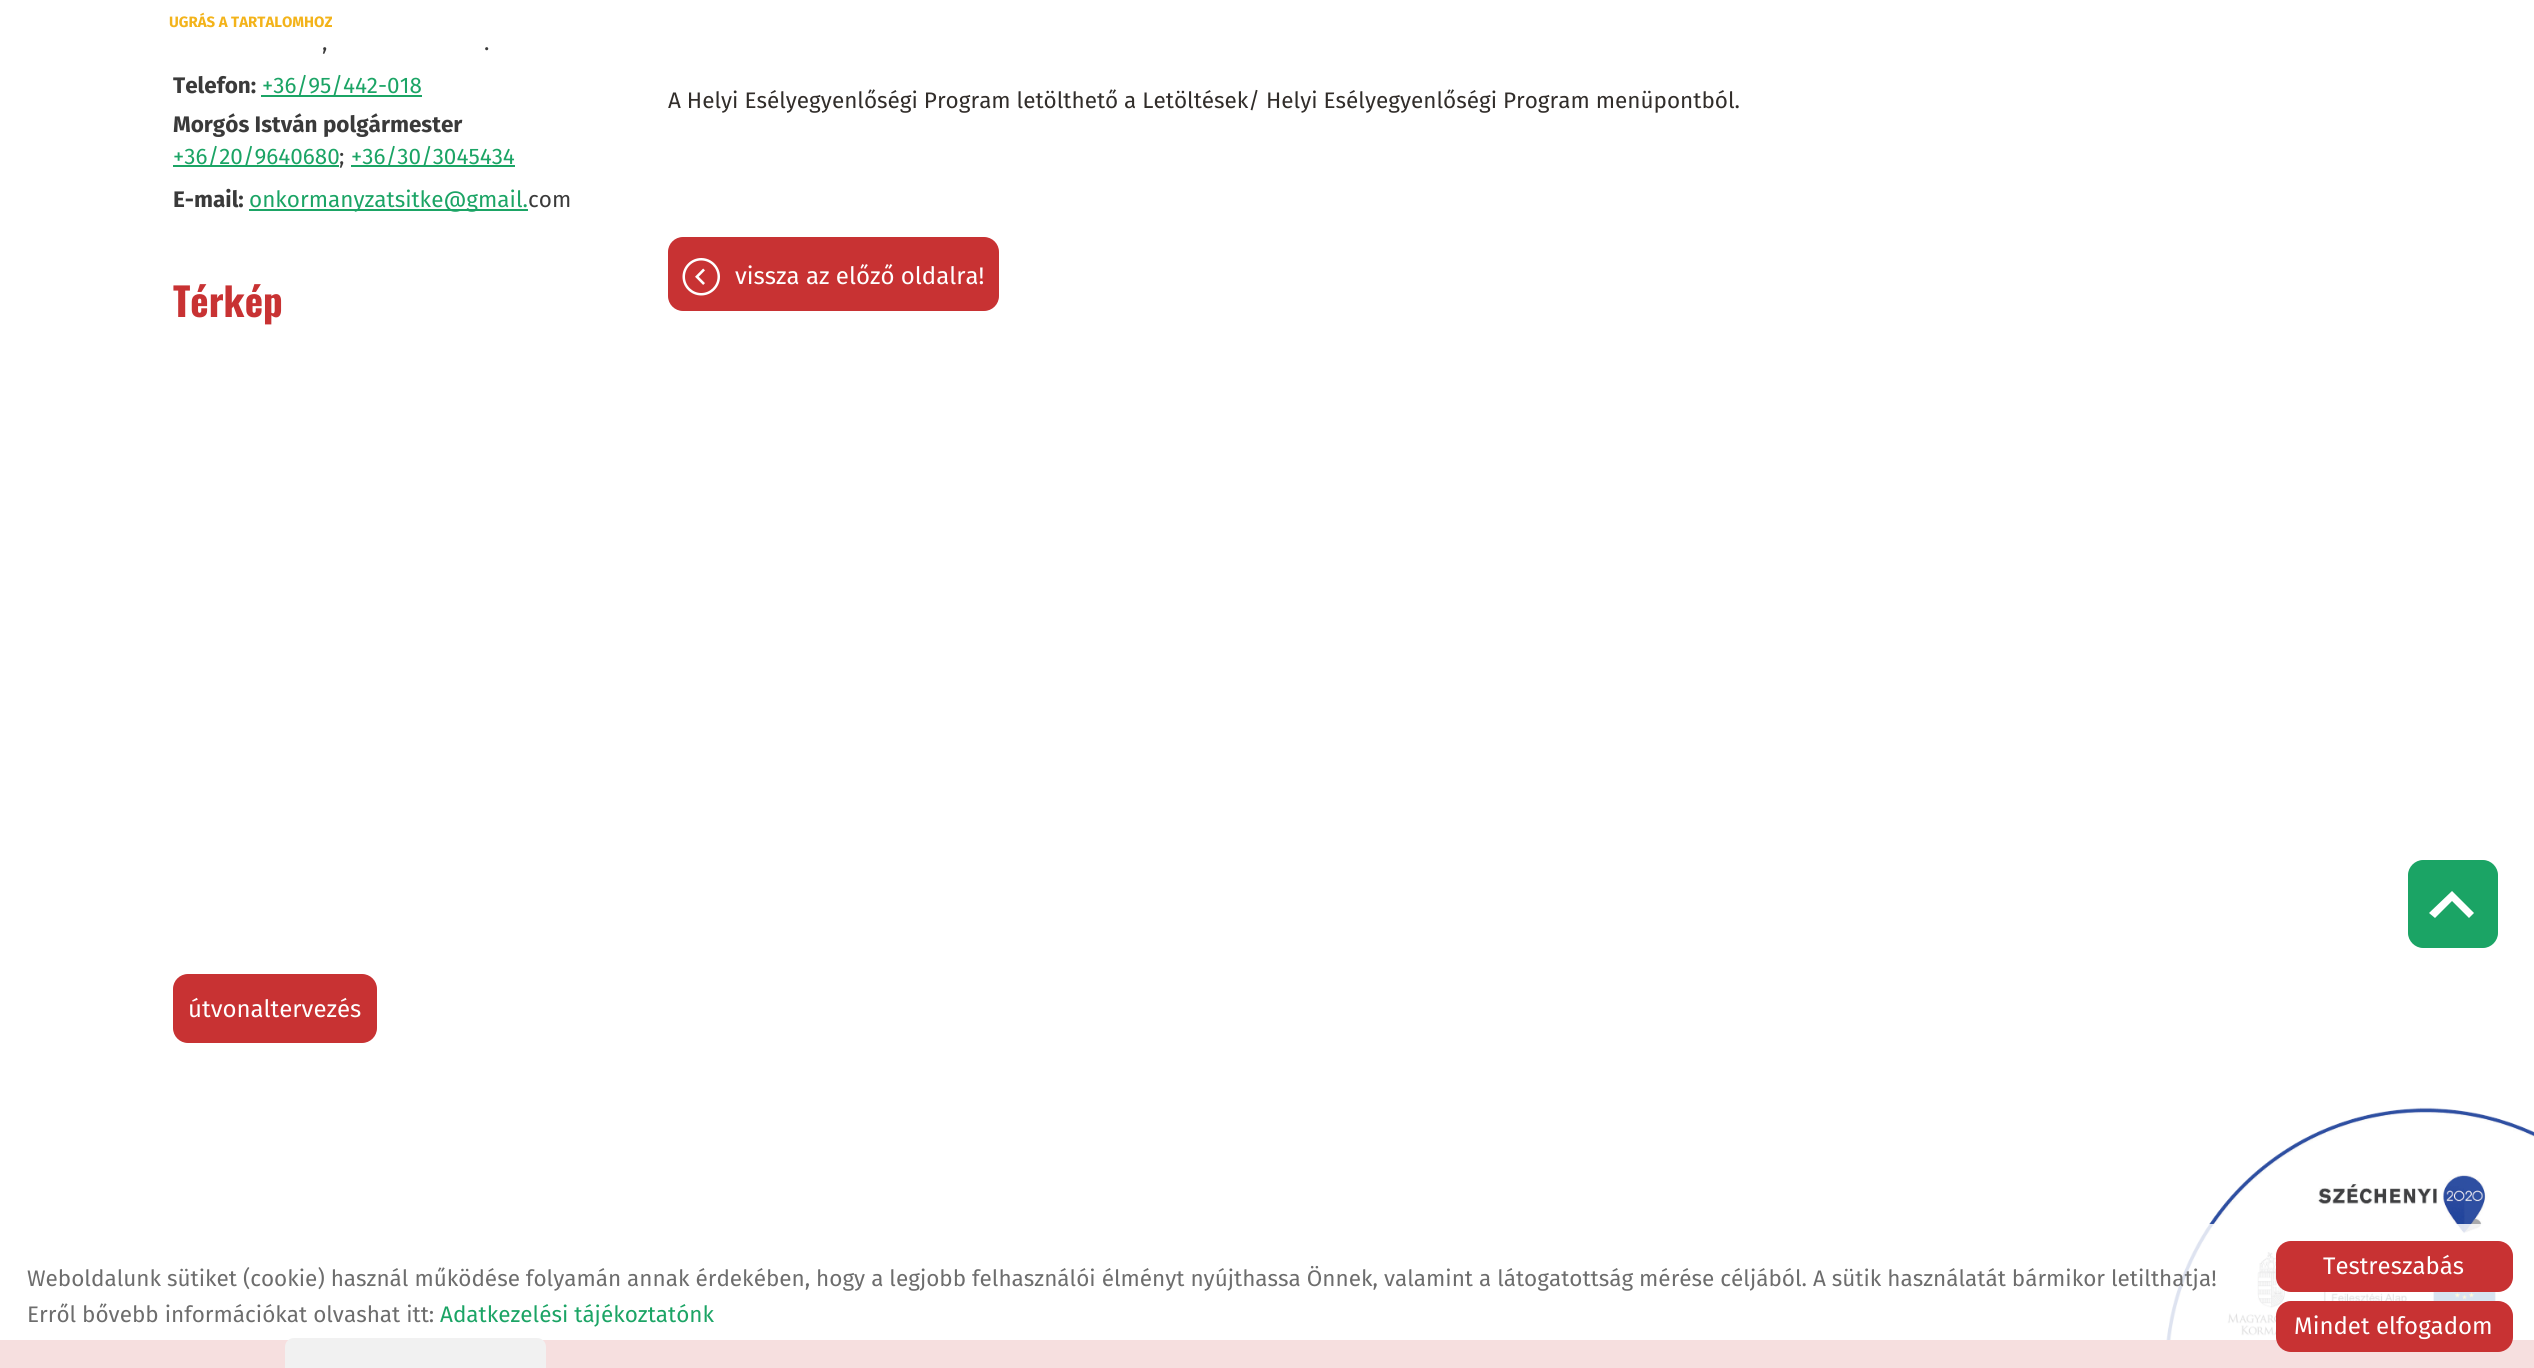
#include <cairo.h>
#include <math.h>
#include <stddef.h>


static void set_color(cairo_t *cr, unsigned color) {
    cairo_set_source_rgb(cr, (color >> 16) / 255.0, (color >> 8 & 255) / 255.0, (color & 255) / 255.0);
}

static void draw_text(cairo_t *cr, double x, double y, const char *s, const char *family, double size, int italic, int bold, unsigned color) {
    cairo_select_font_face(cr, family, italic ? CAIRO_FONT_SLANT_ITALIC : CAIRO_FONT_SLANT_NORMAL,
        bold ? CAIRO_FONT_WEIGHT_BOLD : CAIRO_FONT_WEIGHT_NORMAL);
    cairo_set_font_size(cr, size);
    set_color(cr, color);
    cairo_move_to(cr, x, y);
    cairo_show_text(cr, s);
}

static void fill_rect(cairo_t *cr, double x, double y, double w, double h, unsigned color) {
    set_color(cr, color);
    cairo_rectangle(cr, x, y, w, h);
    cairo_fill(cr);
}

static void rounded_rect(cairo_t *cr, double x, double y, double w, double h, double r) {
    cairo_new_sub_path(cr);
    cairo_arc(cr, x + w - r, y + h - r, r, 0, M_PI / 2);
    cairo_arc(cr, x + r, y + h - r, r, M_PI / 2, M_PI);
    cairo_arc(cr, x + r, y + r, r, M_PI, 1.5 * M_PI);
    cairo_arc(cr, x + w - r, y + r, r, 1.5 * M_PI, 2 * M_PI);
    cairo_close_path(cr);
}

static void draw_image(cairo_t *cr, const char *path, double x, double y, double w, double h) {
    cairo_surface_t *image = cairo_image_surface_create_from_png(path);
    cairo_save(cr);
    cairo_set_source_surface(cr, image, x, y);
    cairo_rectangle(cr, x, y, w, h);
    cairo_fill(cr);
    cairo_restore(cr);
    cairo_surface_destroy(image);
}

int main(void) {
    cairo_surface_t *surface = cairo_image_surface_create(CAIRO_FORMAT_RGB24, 2534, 1368);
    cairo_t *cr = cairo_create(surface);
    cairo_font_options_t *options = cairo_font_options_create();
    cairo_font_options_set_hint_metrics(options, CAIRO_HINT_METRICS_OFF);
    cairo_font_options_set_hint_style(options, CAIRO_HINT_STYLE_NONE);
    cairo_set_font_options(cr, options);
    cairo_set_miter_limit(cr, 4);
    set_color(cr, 0xFFFFFF);
    cairo_paint(cr);
    draw_text(cr, 169, 27, "UGRÁS A TARTALOMHOZ", "Fira Sans", 15, 0, 1, 0xF3B31A);
    draw_text(cr, 322, 50, ",", "Fira Sans", 22.5, 0, 0, 0x3A3A3A);
    draw_text(cr, 484, 50, ".", "Fira Sans", 22.5, 0, 0, 0x3A3A3A);
    draw_text(cr, 173, 93, "Telefon:", "Fira Sans", 22.5, 0, 1, 0x3A3A3A);
    fill_rect(cr, 261, 95, 161, 2, 0x1BA465);
    draw_text(cr, 262, 93, "+36/95/442-018", "Fira Sans", 22.5, 0, 0, 0x1BA465);
    draw_text(cr, 173, 132, "Morgós István polgármester", "Fira Sans", 22.5, 0, 1, 0x3A3A3A);
    fill_rect(cr, 173, 165, 166, 2, 0x1BA465);
    draw_text(cr, 173, 164, "+36/20/9640680", "Fira Sans", 22.5, 0, 0, 0x1BA465);
    draw_text(cr, 339, 164, ";", "Fira Sans", 22.5, 0, 0, 0x3A3A3A);
    fill_rect(cr, 351, 165, 164, 2, 0x1BA465);
    draw_text(cr, 351, 164, "+36/30/3045434", "Fira Sans", 22.5, 0, 0, 0x1BA465);
    draw_text(cr, 173, 207, "E-mail:", "Fira Sans", 22.5, 0, 1, 0x3A3A3A);
    fill_rect(cr, 249, 209, 279, 2, 0x1BA465);
    draw_text(cr, 249, 207, "onkormanyzatsitke@gmail.", "Fira Sans", 22.5, 0, 0, 0x1BA465);
    draw_text(cr, 528, 207, "com", "Fira Sans", 22.5, 0, 0, 0x3A3A3A);
    cairo_save(cr);
    cairo_rectangle(cr, 173, 263, 435, 66);
    cairo_clip(cr);
    draw_text(cr, 173, 317, "Térkép", "Oswald", 39, 0, 1, 0xC83233);
    cairo_restore(cr);
    set_color(cr, 0xC83233);
    rounded_rect(cr, 173, 974, 204, 69, 15);
    cairo_fill(cr);
    draw_text(cr, 188, 1017, "útvonaltervezés", "Fira Sans", 24, 0, 0, 0xFFFFFF);
    draw_text(cr, 668, 108, "A Helyi Esélyegyenlőségi Program letölthető a Letöltések/ Helyi Esélyegyenlőségi Program menüpontból.", "Fira Sans", 22.5, 0, 0, 0x312D2A);
    set_color(cr, 0xC83233);
    rounded_rect(cr, 668, 237, 331, 74, 15);
    cairo_fill(cr);
    draw_image(cr, "assets/img1.png", 682, 258, 38, 38);
    draw_text(cr, 735, 284, "vissza az előző oldalra!", "Fira Sans", 24, 0, 0, 0xFFFFFF);
    draw_image(cr, "assets/img2.png", 2166, 1107, 368, 233);
    fill_rect(cr, 0, 1340, 2534, 28, 0xC83233);
    set_color(cr, 0x1BA465);
    cairo_set_fill_rule(cr, CAIRO_FILL_RULE_EVEN_ODD);
    cairo_new_path(cr);
    cairo_move_to(cr, 2423, 860);
    cairo_curve_to(cr, 2415, 860, 2408, 867, 2408, 875);
    cairo_line_to(cr, 2408, 933);
    cairo_curve_to(cr, 2408, 941, 2415, 948, 2423, 948);
    cairo_line_to(cr, 2483, 948);
    cairo_curve_to(cr, 2491, 948, 2498, 941, 2498, 933);
    cairo_line_to(cr, 2498, 875);
    cairo_curve_to(cr, 2498, 867, 2491, 860, 2483, 860);
    cairo_close_path(cr);
    cairo_move_to(cr, 2452, 891);
    cairo_line_to(cr, 2474, 913);
    cairo_line_to(cr, 2469, 918);
    cairo_line_to(cr, 2452, 901);
    cairo_line_to(cr, 2435, 918);
    cairo_line_to(cr, 2429, 913);
    cairo_close_path(cr);
    cairo_fill(cr);
    set_color(cr, 0xA5A5A5);
    cairo_new_path(cr);
    cairo_move_to(cr, 294, 1338);
    cairo_line_to(cr, 537, 1338);
    cairo_curve_to(cr, 542, 1338, 546, 1342, 546, 1347);
    cairo_line_to(cr, 546, 1368);
    cairo_line_to(cr, 285, 1368);
    cairo_line_to(cr, 285, 1347);
    cairo_curve_to(cr, 285, 1342, 289, 1338, 294, 1338);
    cairo_close_path(cr);
    cairo_fill(cr);
    cairo_set_source_rgba(cr, 1, 1, 1, 0.84);
    cairo_rectangle(cr, 0, 1224, 2534, 144);
    cairo_fill(cr);
    draw_text(cr, 27, 1286, "Weboldalunk sütiket (cookie) használ működése folyamán annak érdekében, hogy a legjobb felhasználói élményt nyújthassa Önnek, valamint a látogatottság mérése céljából. A sütik használatát bármikor letilthatja!", "Fira Sans", 22.5, 0, 0, 0x6D6D6D);
    draw_text(cr, 27, 1322, "Erről bővebb információkat olvashat itt:", "Fira Sans", 22.5, 0, 0, 0x6D6D6D);
    draw_text(cr, 440, 1322, "Adatkezelési tájékoztatónk", "Fira Sans", 22.5, 0, 0, 0x1BA465);
    set_color(cr, 0xC83233);
    rounded_rect(cr, 2276, 1241, 237, 51, 15);
    cairo_fill(cr);
    draw_text(cr, 2323, 1274, "Testreszabás", "Fira Sans", 24, 0, 0, 0xFFFFFF);
    set_color(cr, 0xC83233);
    rounded_rect(cr, 2276, 1301, 237, 51, 15);
    cairo_fill(cr);
    draw_text(cr, 2294, 1334, "Mindet elfogadom", "Fira Sans", 24, 0, 0, 0xFFFFFF);
    cairo_surface_write_to_png(surface, "output.png");
    cairo_font_options_destroy(options);
    cairo_destroy(cr);
    cairo_surface_destroy(surface);
    return 0;
}
